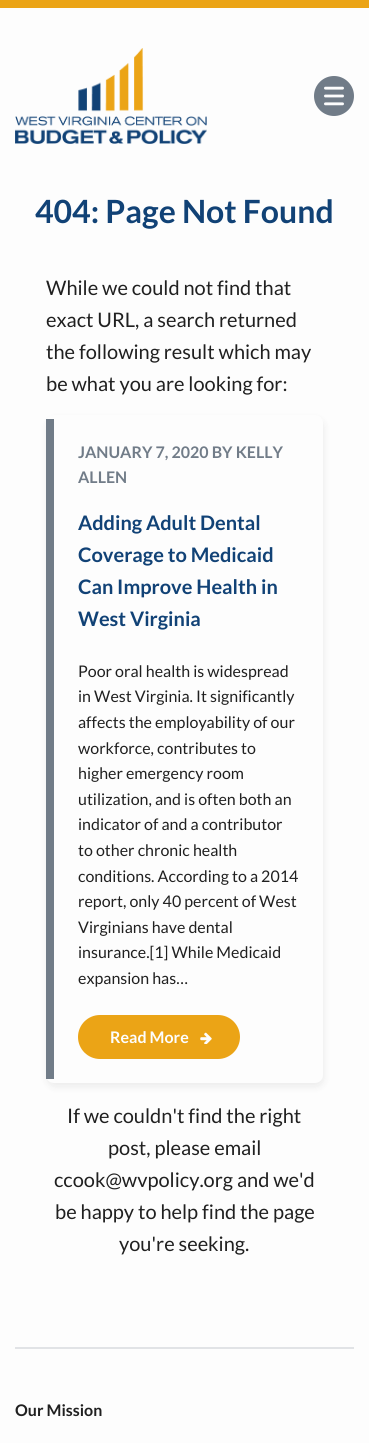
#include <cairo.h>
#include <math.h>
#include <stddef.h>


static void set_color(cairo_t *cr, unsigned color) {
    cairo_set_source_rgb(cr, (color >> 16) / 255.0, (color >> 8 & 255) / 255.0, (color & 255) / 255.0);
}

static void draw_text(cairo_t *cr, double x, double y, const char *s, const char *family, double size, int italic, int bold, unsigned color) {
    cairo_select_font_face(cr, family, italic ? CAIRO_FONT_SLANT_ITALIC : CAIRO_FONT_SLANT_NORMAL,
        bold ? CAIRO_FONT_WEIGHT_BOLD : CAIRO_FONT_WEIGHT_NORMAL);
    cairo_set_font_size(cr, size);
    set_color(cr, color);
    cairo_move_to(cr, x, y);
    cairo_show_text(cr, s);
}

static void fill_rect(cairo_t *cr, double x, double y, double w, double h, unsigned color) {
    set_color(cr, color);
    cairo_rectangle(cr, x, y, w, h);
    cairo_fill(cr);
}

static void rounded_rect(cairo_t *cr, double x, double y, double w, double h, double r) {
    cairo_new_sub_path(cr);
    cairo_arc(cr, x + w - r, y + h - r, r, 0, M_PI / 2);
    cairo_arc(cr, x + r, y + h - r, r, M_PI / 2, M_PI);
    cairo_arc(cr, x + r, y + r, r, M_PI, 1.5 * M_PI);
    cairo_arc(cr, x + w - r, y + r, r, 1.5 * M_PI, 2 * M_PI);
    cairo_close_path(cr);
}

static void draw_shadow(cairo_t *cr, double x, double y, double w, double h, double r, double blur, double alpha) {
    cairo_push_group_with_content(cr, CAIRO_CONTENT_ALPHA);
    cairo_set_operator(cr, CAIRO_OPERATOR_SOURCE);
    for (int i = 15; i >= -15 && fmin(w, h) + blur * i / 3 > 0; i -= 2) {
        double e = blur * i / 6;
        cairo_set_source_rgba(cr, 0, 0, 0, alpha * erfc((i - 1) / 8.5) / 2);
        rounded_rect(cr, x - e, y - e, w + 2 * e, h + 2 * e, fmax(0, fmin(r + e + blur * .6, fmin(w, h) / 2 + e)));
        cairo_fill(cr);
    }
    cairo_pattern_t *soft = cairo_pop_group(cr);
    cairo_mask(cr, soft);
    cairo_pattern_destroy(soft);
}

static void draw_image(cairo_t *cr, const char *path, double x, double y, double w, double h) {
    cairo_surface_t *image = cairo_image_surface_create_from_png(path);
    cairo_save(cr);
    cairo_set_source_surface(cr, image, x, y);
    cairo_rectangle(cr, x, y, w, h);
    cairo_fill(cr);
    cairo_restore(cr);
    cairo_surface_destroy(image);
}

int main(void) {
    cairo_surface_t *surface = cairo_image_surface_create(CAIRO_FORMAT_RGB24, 369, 1443);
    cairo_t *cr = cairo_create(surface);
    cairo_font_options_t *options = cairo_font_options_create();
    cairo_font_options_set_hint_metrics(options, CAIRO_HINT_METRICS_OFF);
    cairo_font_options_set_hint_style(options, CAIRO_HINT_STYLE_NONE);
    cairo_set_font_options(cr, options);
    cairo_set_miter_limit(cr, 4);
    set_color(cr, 0xFDFDFD);
    cairo_paint(cr);
    fill_rect(cr, 0, 0, 369, 8, 0xEBA416);
    draw_image(cr, "assets/img1.png", 15, 48, 192, 96);
    draw_image(cr, "assets/img2.png", 314, 76, 40, 40);
    draw_text(cr, 35, 223, "404: Page Not Found", "Lato", 32, 0, 1, 0x114276);
    draw_text(cr, 46, 295, "While we could not find that", "Lato", 20, 0, 0, 0x202020);
    draw_text(cr, 46, 327, "exact URL, a search returned", "Lato", 20, 0, 0, 0x202020);
    draw_text(cr, 46, 359, "the following result which may", "Lato", 20, 0, 0, 0x202020);
    draw_text(cr, 46, 391, "be what you are looking for:", "Lato", 20, 0, 0, 0x202020);
    set_color(cr, 0x202020);
    draw_shadow(cr, 47, 419, 277, 668, 8, 4, 0.08);
    set_color(cr, 0xFDFDFD);
    rounded_rect(cr, 46, 415, 277, 668, 8);
    cairo_fill(cr);
    fill_rect(cr, 46, 419, 8, 660, 0x717C88);
    draw_text(cr, 78, 458, "JANUARY 7, 2020 BY KELLY", "Lato", 16, 0, 1, 0x717C88);
    draw_text(cr, 78, 483, "ALLEN", "Lato", 16, 0, 1, 0x717C88);
    draw_text(cr, 78, 530, "Adding Adult Dental", "Lato", 20, 0, 1, 0x114276);
    draw_text(cr, 78, 562, "Coverage to Medicaid", "Lato", 20, 0, 1, 0x114276);
    draw_text(cr, 78, 594, "Can Improve Health in", "Lato", 20, 0, 1, 0x114276);
    draw_text(cr, 78, 626, "West Virginia", "Lato", 20, 0, 1, 0x114276);
    draw_text(cr, 78, 677, "Poor oral health is widespread", "Lato", 16, 0, 0, 0x202020);
    draw_text(cr, 78, 702, "in West Virginia. It significantly", "Lato", 16, 0, 0, 0x202020);
    draw_text(cr, 78, 728, "affects the employability of our", "Lato", 16, 0, 0, 0x202020);
    draw_text(cr, 78, 754, "workforce, contributes to", "Lato", 16, 0, 0, 0x202020);
    draw_text(cr, 78, 779, "higher emergency room", "Lato", 16, 0, 0, 0x202020);
    draw_text(cr, 78, 805, "utilization, and is often both an", "Lato", 16, 0, 0, 0x202020);
    draw_text(cr, 78, 830, "indicator of and a contributor", "Lato", 16, 0, 0, 0x202020);
    draw_text(cr, 78, 856, "to other chronic health", "Lato", 16, 0, 0, 0x202020);
    draw_text(cr, 78, 882, "conditions. According to a 2014", "Lato", 16, 0, 0, 0x202020);
    draw_text(cr, 78, 907, "report, only 40 percent of West", "Lato", 16, 0, 0, 0x202020);
    draw_text(cr, 78, 933, "Virginians have dental", "Lato", 16, 0, 0, 0x202020);
    draw_text(cr, 78, 958, "insurance.[1] While Medicaid", "Lato", 16, 0, 0, 0x202020);
    draw_text(cr, 78, 984, "expansion has…", "Lato", 16, 0, 0, 0x202020);
    set_color(cr, 0xEBA416);
    rounded_rect(cr, 78, 1015, 162, 44, 22);
    cairo_fill(cr);
    draw_text(cr, 110, 1043, "Read More", "Lato", 16, 0, 1, 0xFDFDFD);
    draw_image(cr, "assets/img3.png", 200, 1032, 12, 12);
    draw_text(cr, 67, 1123, "If we couldn't find the right", "Lato", 20, 0, 0, 0x202020);
    draw_text(cr, 108, 1155, "post, please email", "Lato", 20, 0, 0, 0x202020);
    draw_text(cr, 54, 1187, "ccook@wvpolicy.org and we'd", "Lato", 20, 0, 0, 0x202020);
    draw_text(cr, 55, 1219, "be happy to help find the page", "Lato", 20, 0, 0, 0x202020);
    draw_text(cr, 119, 1251, "you're seeking.", "Lato", 20, 0, 0, 0x202020);
    fill_rect(cr, 15, 1347, 339, 2, 0xE1E3E6);
    draw_text(cr, 15, 1416, "Our Mission", "Lato", 16, 0, 1, 0x202020);
    cairo_surface_write_to_png(surface, "output.png");
    cairo_font_options_destroy(options);
    cairo_destroy(cr);
    cairo_surface_destroy(surface);
    return 0;
}
